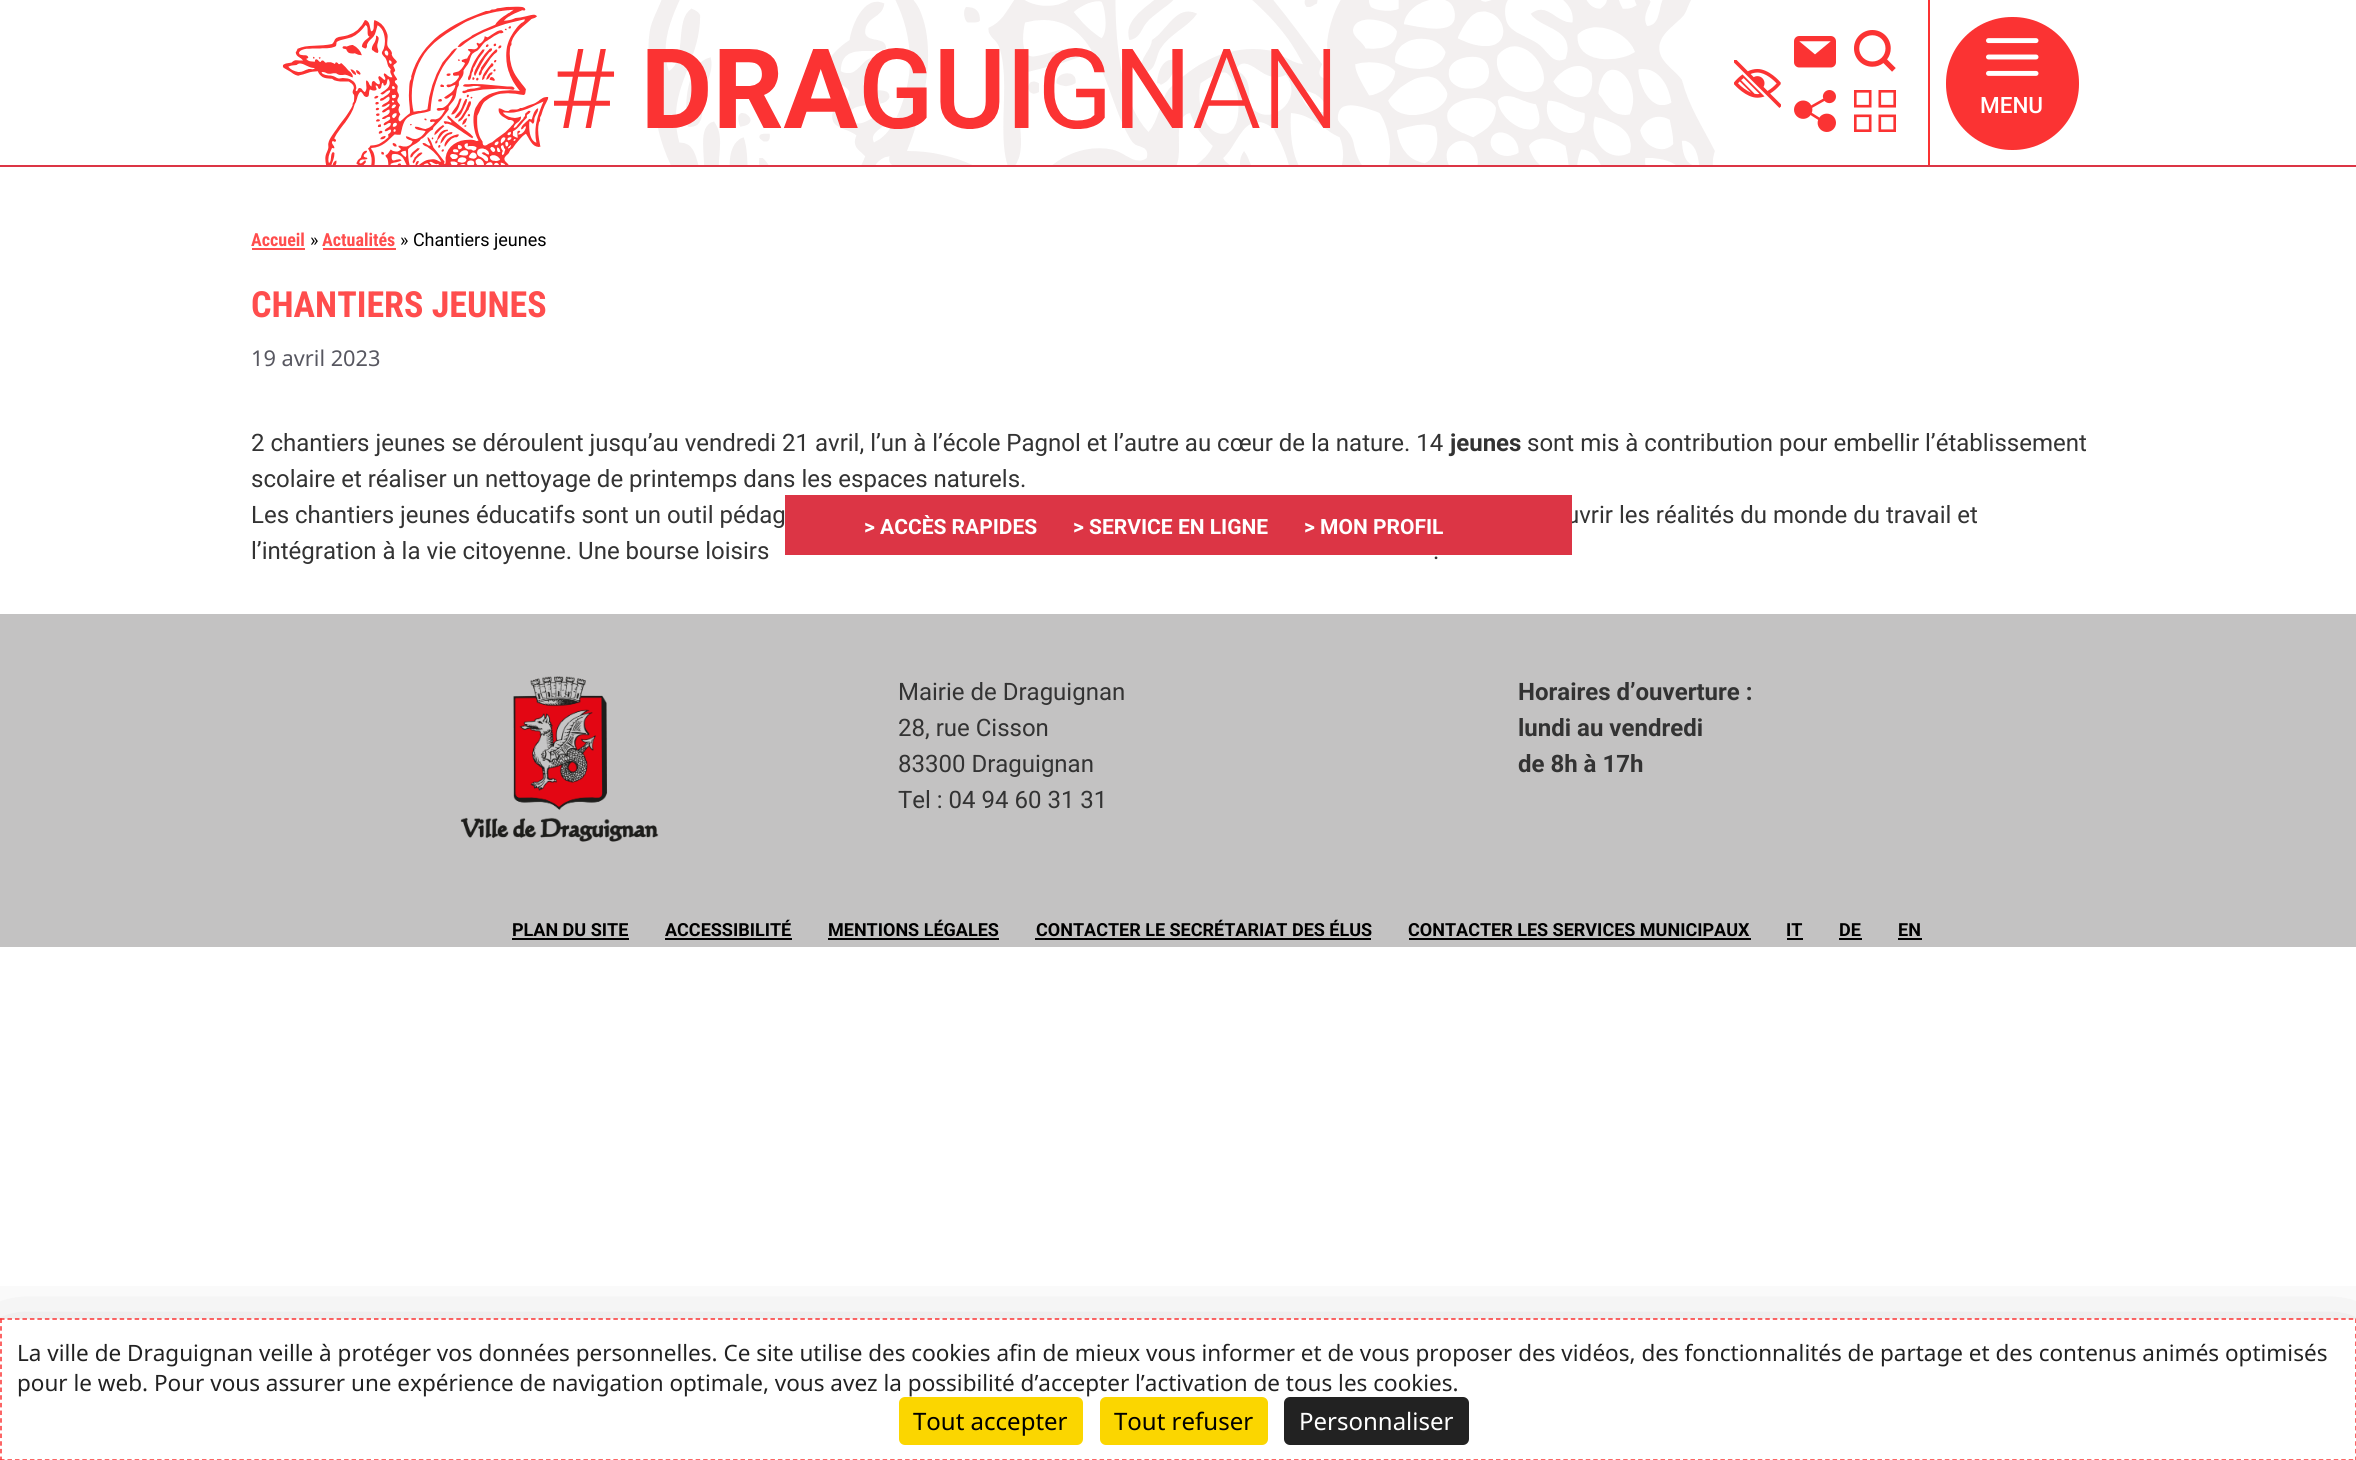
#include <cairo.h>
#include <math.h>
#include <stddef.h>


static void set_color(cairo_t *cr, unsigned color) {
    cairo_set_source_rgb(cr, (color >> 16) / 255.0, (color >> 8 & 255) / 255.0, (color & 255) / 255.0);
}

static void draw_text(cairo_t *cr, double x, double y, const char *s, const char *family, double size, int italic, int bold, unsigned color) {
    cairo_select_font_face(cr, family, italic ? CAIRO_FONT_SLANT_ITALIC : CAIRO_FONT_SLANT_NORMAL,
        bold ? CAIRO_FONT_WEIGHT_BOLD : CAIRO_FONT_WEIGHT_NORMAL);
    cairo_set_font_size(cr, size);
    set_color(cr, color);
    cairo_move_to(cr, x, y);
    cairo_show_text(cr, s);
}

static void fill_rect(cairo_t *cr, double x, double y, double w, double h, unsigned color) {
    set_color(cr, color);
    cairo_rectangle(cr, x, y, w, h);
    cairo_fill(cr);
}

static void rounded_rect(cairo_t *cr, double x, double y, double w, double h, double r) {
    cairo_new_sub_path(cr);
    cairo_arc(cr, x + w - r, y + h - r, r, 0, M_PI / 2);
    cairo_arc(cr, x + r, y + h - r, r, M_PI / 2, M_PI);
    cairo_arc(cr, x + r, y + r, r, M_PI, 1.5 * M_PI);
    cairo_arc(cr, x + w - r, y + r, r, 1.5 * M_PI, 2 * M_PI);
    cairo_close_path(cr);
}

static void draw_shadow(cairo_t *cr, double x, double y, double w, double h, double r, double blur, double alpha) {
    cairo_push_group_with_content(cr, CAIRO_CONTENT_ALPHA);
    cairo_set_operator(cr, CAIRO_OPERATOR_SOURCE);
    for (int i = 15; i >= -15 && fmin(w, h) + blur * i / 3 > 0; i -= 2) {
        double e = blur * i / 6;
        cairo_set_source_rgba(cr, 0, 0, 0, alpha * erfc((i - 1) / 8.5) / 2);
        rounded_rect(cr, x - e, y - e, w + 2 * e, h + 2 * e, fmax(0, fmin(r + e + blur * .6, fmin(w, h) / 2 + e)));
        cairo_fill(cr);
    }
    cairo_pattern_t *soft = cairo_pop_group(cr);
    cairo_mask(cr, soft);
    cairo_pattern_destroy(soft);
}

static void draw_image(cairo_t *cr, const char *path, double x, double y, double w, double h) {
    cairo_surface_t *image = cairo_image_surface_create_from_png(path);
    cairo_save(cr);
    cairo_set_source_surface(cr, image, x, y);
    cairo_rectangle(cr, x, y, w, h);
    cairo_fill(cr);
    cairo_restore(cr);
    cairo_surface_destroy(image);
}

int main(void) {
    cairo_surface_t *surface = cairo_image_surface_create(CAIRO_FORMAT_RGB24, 2356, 1460);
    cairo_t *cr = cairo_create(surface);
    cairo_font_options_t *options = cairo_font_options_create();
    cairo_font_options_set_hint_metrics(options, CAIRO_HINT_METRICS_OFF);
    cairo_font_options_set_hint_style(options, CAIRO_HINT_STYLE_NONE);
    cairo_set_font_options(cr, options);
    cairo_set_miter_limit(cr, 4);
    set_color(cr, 0xFFFFFF);
    cairo_paint(cr);
    fill_rect(cr, 0, 165, 2356, 2, 0xDC3545);
    draw_image(cr, "assets/img1.png", 554, 0, 1161, 165);
    draw_image(cr, "assets/img2.png", 282, 6, 267, 159);
    fill_rect(cr, 1928, 0, 2, 165, 0xFB3333);
    draw_image(cr, "assets/img3.png", 1794, 36, 42, 32);
    draw_image(cr, "assets/img4.png", 1854, 30, 42, 42);
    draw_image(cr, "assets/img5.png", 1734, 60, 47, 48);
    draw_image(cr, "assets/img6.png", 1794, 90, 42, 42);
    draw_image(cr, "assets/img7.png", 1854, 90, 42, 42);
    rounded_rect(cr, 1946, 17, 133, 133, 66);
    cairo_fill(cr);
    draw_image(cr, "assets/img8.png", 1986, 38, 53, 38);
    draw_text(cr, 1980, 113, "MENU", "Roboto Medium", 22.5, 0, 0, 0xFFFFFF);
    draw_text(cr, 251, 246, "Accueil", "Roboto Condensed", 18, 0, 1, 0xFF4D4D);
    fill_rect(cr, 252, 248, 53, 2, 0xFF4D4D);
    draw_text(cr, 310, 246, "»", "Roboto", 18, 0, 0, 0x000000);
    draw_text(cr, 322, 246, "Actualités", "Roboto Condensed", 18, 0, 1, 0xFF4D4D);
    fill_rect(cr, 323, 248, 73, 2, 0xFF4D4D);
    draw_text(cr, 400, 246, "» Chantiers jeunes", "Roboto", 18, 0, 0, 0x000000);
    draw_text(cr, 251, 317, "CHANTIERS JEUNES", "Roboto Condensed", 36, 0, 1, 0xFF4D4D);
    draw_text(cr, 251, 366, "19 avril 2023", "Noto Sans", 21.75, 0, 0, 0x575760);
    draw_text(cr, 251, 451, "2 chantiers jeunes se déroulent jusqu’au vendredi 21 avril, l’un à l’école Pagnol et l’autre au cœur de la nature. 14", "Roboto", 24, 0, 0, 0x333333);
    draw_text(cr, 1450, 451, "jeunes", "Roboto", 24, 0, 1, 0x333333);
    draw_text(cr, 1527, 451, "sont mis à contribution pour embellir l’établissement", "Roboto", 24, 0, 0, 0x333333);
    draw_text(cr, 251, 487, "scolaire et réaliser un nettoyage de printemps dans les espaces naturels.", "Roboto", 24, 0, 0, 0x333333);
    draw_text(cr, 251, 523, "Les chantiers jeunes éducatifs sont un outil pédag", "Roboto", 24, 0, 0, 0x333333);
    draw_text(cr, 1566, 523, "uvrir les réalités du monde du travail et", "Roboto", 24, 0, 0, 0x333333);
    draw_text(cr, 251, 559, "l’intégration à la vie citoyenne. Une bourse loisirs", "Roboto", 24, 0, 0, 0x333333);
    draw_text(cr, 1433, 559, ".", "Roboto", 24, 0, 0, 0x333333);
    fill_rect(cr, 785, 495, 787, 60, 0xDC3545);
    draw_text(cr, 864, 534, "> ACCÈS RAPIDES", "Roboto", 21, 0, 1, 0xFFFFFF);
    draw_text(cr, 1073, 534, "> SERVICE EN LIGNE", "Roboto", 21, 0, 1, 0xFFFFFF);
    draw_text(cr, 1304, 534, "> MON PROFIL", "Roboto", 21, 0, 1, 0xFFFFFF);
    fill_rect(cr, 0, 614, 2356, 333, 0xC3C2C2);
    draw_image(cr, "assets/img9.png", 460, 676, 199, 166);
    draw_text(cr, 898, 700, "Mairie de Draguignan", "Roboto", 24, 0, 0, 0x333333);
    draw_text(cr, 898, 736, "28, rue Cisson", "Roboto", 24, 0, 0, 0x333333);
    draw_text(cr, 898, 772, "83300 Draguignan", "Roboto", 24, 0, 0, 0x333333);
    draw_text(cr, 898, 808, "Tel : 04 94 60 31 31", "Roboto", 24, 0, 0, 0x333333);
    draw_text(cr, 1518, 700, "Horaires d’ouverture :", "Roboto", 24, 0, 1, 0x333333);
    draw_text(cr, 1518, 736, "lundi au vendredi", "Roboto", 24, 0, 1, 0x333333);
    draw_text(cr, 1518, 772, "de 8h à 17h", "Roboto", 24, 0, 1, 0x333333);
    draw_text(cr, 512, 936, "PLAN DU SITE", "Roboto", 18, 0, 1, 0x000000);
    fill_rect(cr, 512, 938, 117, 2, 0x000000);
    draw_text(cr, 665, 936, "ACCESSIBILITÉ", "Roboto", 18, 0, 1, 0x000000);
    fill_rect(cr, 665, 938, 127, 2, 0x000000);
    draw_text(cr, 828, 936, "MENTIONS LÉGALES", "Roboto", 18, 0, 1, 0x000000);
    fill_rect(cr, 828, 938, 171, 2, 0x000000);
    draw_text(cr, 1036, 936, "CONTACTER LE SECRÉTARIAT DES ÉLUS", "Roboto", 18, 0, 1, 0x000000);
    fill_rect(cr, 1035, 938, 336, 2, 0x000000);
    draw_text(cr, 1408, 936, "CONTACTER LES SERVICES MUNICIPAUX", "Roboto", 18, 0, 1, 0x000000);
    fill_rect(cr, 1409, 938, 342, 2, 0x000000);
    draw_text(cr, 1786, 936, "IT", "Roboto", 18, 0, 1, 0x000000);
    fill_rect(cr, 1787, 938, 16, 2, 0x000000);
    draw_text(cr, 1839, 936, "DE", "Roboto", 18, 0, 1, 0x000000);
    fill_rect(cr, 1839, 938, 23, 2, 0x000000);
    draw_text(cr, 1898, 936, "EN", "Roboto", 18, 0, 1, 0x000000);
    fill_rect(cr, 1898, 938, 24, 2, 0x000000);
    cairo_save(cr);
    cairo_rectangle(cr, 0, 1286, 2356, 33);
    cairo_clip(cr);
    set_color(cr, 0x000000);
    draw_shadow(cr, 0, 1349, 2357, 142, 0, 45, 0.25);
    cairo_restore(cr);
    cairo_new_path(cr);
    cairo_move_to(cr, 0, 1319);
    cairo_line_to(cr, 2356.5, 1319);
    set_color(cr, 0xFB3333);
    cairo_set_line_width(cr, 1.5);
    cairo_set_dash(cr, (double[]){4.5, 2.98}, 2, 0);
    cairo_stroke(cr);
    cairo_new_path(cr);
    cairo_move_to(cr, 2356, 1318.5);
    cairo_line_to(cr, 2356, 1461);
    cairo_set_dash(cr, (double[]){4.5, 3.17}, 2, 0);
    cairo_stroke(cr);
    cairo_new_path(cr);
    cairo_move_to(cr, 0, 1460);
    cairo_line_to(cr, 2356.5, 1460);
    cairo_set_dash(cr, (double[]){4.5, 2.98}, 2, 0);
    cairo_stroke(cr);
    cairo_new_path(cr);
    cairo_move_to(cr, 1, 1318.5);
    cairo_line_to(cr, 1, 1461);
    cairo_set_dash(cr, (double[]){4.5, 3.17}, 2, 0);
    cairo_stroke(cr);
    draw_text(cr, 17, 1361, "La ville de Draguignan veille à protéger vos données personnelles. Ce site utilise des cookies afin de mieux vous informer et de vous proposer des vidéos, des fonctionnalités de partage et des contenus animés optimisés", "Noto Sans", 22.5, 0, 0, 0x222222);
    draw_text(cr, 17, 1391, "pour le web. Pour vous assurer une expérience de navigation optimale, vous avez la possibilité d’accepter l’activation de tous les cookies.", "Noto Sans", 22.5, 0, 0, 0x222222);
    set_color(cr, 0xFBD600);
    rounded_rect(cr, 899, 1397, 184, 48, 6);
    cairo_fill(cr);
    draw_text(cr, 913, 1430, "Tout accepter", "Noto Sans", 24, 0, 0, 0x000000);
    set_color(cr, 0xFBD600);
    rounded_rect(cr, 1100, 1397, 168, 48, 6);
    cairo_fill(cr);
    draw_text(cr, 1114, 1430, "Tout refuser", "Noto Sans", 24, 0, 0, 0x000000);
    set_color(cr, 0x222222);
    rounded_rect(cr, 1284, 1397, 185, 48, 6);
    cairo_fill(cr);
    draw_text(cr, 1299, 1430, "Personnaliser", "Noto Sans", 24, 0, 0, 0xFFFFFF);
    cairo_surface_write_to_png(surface, "output.png");
    cairo_font_options_destroy(options);
    cairo_destroy(cr);
    cairo_surface_destroy(surface);
    return 0;
}
